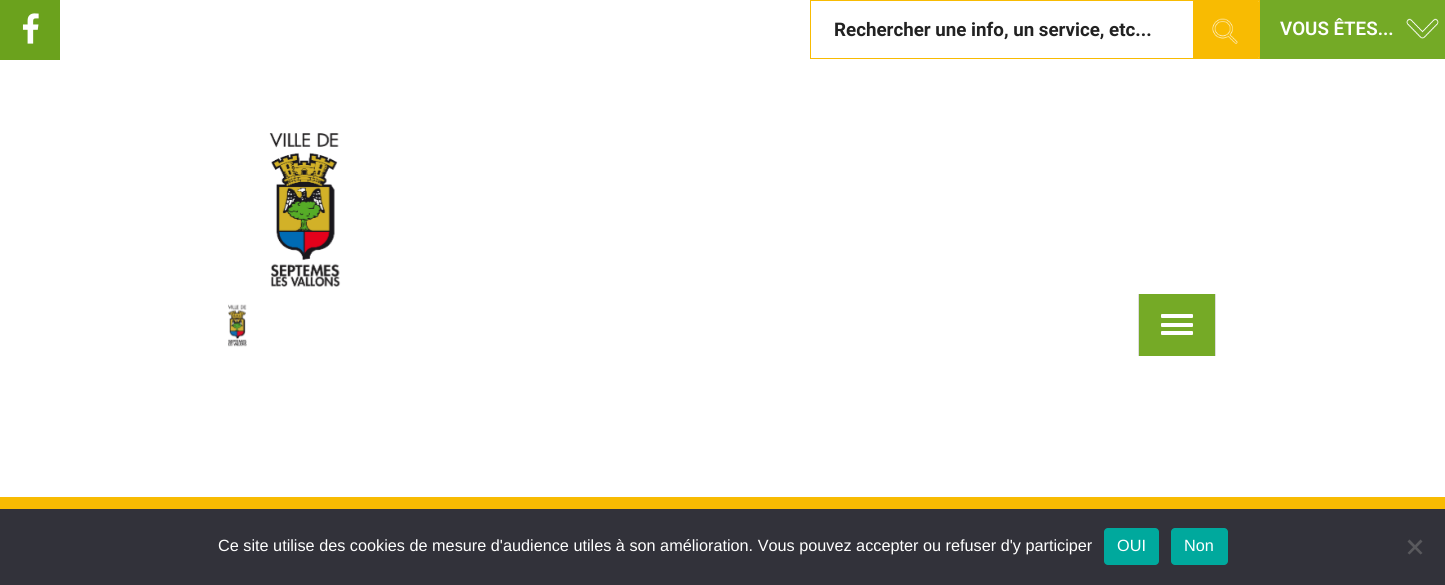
#include <cairo.h>
#include <math.h>
#include <stddef.h>


static void set_color(cairo_t *cr, unsigned color) {
    cairo_set_source_rgb(cr, (color >> 16) / 255.0, (color >> 8 & 255) / 255.0, (color & 255) / 255.0);
}

static void draw_text(cairo_t *cr, double x, double y, const char *s, const char *family, double size, int italic, int bold, unsigned color) {
    cairo_select_font_face(cr, family, italic ? CAIRO_FONT_SLANT_ITALIC : CAIRO_FONT_SLANT_NORMAL,
        bold ? CAIRO_FONT_WEIGHT_BOLD : CAIRO_FONT_WEIGHT_NORMAL);
    cairo_set_font_size(cr, size);
    set_color(cr, color);
    cairo_move_to(cr, x, y);
    cairo_show_text(cr, s);
}

static void fill_rect(cairo_t *cr, double x, double y, double w, double h, unsigned color) {
    set_color(cr, color);
    cairo_rectangle(cr, x, y, w, h);
    cairo_fill(cr);
}

static void rounded_rect(cairo_t *cr, double x, double y, double w, double h, double r) {
    cairo_new_sub_path(cr);
    cairo_arc(cr, x + w - r, y + h - r, r, 0, M_PI / 2);
    cairo_arc(cr, x + r, y + h - r, r, M_PI / 2, M_PI);
    cairo_arc(cr, x + r, y + r, r, M_PI, 1.5 * M_PI);
    cairo_arc(cr, x + w - r, y + r, r, 1.5 * M_PI, 2 * M_PI);
    cairo_close_path(cr);
}

static void draw_image(cairo_t *cr, const char *path, double x, double y, double w, double h) {
    cairo_surface_t *image = cairo_image_surface_create_from_png(path);
    cairo_save(cr);
    cairo_set_source_surface(cr, image, x, y);
    cairo_rectangle(cr, x, y, w, h);
    cairo_fill(cr);
    cairo_restore(cr);
    cairo_surface_destroy(image);
}

int main(void) {
    cairo_surface_t *surface = cairo_image_surface_create(CAIRO_FORMAT_RGB24, 1445, 585);
    cairo_t *cr = cairo_create(surface);
    cairo_font_options_t *options = cairo_font_options_create();
    cairo_font_options_set_hint_metrics(options, CAIRO_HINT_METRICS_OFF);
    cairo_font_options_set_hint_style(options, CAIRO_HINT_STYLE_NONE);
    cairo_set_font_options(cr, options);
    cairo_set_miter_limit(cr, 4);
    set_color(cr, 0xFFFFFF);
    cairo_paint(cr);
    fill_rect(cr, 0, 0, 60, 60, 0x6BA21D);
    draw_image(cr, "assets/img1.png", 22, 13, 17, 31);
    cairo_rectangle(cr, 810.5, 0.5, 449, 58);
    set_color(cr, 0xF8BB02);
    cairo_set_line_width(cr, 1);
    cairo_stroke(cr);
    draw_text(cr, 834, 36, "Rechercher une info, un service, etc...", "Roboto", 18.75, 0, 1, 0x222222);
    set_color(cr, 0xF8BB02);
    cairo_new_path(cr);
    cairo_move_to(cr, 1193, 0);
    cairo_line_to(cr, 1256, 0);
    cairo_curve_to(cr, 1258, 0, 1260, 2, 1260, 4);
    cairo_line_to(cr, 1260, 55);
    cairo_curve_to(cr, 1260, 57, 1258, 59, 1256, 59);
    cairo_line_to(cr, 1193, 59);
    cairo_close_path(cr);
    cairo_fill(cr);
    draw_image(cr, "assets/img2.png", 1212, 18, 26, 26);
    fill_rect(cr, 1260, 0, 185, 59, 0x74AA26);
    draw_image(cr, "assets/img3.png", 1406, 18, 33, 21);
    draw_text(cr, 1280, 35, "VOUS ÊTES...", "Roboto SemiBold", 18.75, 0, 0, 0xFFFFFF);
    draw_image(cr, "assets/img4.png", 269, 133, 72, 154);
    draw_image(cr, "assets/img5.png", 228, 304, 19, 43);
    fill_rect(cr, 1139, 294, 76, 62, 0x75AA26);
    fill_rect(cr, 1215, 294, 1, 62, 0xDDDDDD);
    fill_rect(cr, 1138, 294, 1, 62, 0xDDDDDD);
    set_color(cr, 0xFFFFFF);
    rounded_rect(cr, 1161, 314, 32, 4, 1);
    cairo_fill(cr);
    rounded_rect(cr, 1161, 323, 32, 4, 1);
    cairo_fill(cr);
    rounded_rect(cr, 1161, 331, 32, 4, 1);
    cairo_fill(cr);
    fill_rect(cr, 0, 497, 1445, 12, 0xF8BB02);
    fill_rect(cr, 0, 509, 1445, 76, 0x32323A);
    draw_text(cr, 218, 551, "Ce site utilise des cookies de mesure d'audience utiles à son amélioration. Vous pouvez accepter ou refuser d'y participer", "Liberation Sans", 16.25, 0, 0, 0xFFFFFF);
    set_color(cr, 0x00A99D);
    rounded_rect(cr, 1104, 528, 55, 37, 4);
    cairo_fill(cr);
    draw_text(cr, 1117, 551, "OUI", "Liberation Sans", 16.25, 0, 0, 0xFFFFFF);
    set_color(cr, 0x00A99D);
    rounded_rect(cr, 1171, 528, 57, 37, 4);
    cairo_fill(cr);
    draw_text(cr, 1184, 551, "Non", "Liberation Sans", 16.25, 0, 0, 0xFFFFFF);
    set_color(cr, 0x59595D);
    cairo_new_path(cr);
    cairo_move_to(cr, 1420.5, 539.5);
    cairo_line_to(cr, 1422.5, 541.5);
    cairo_line_to(cr, 1409.5, 554.5);
    cairo_line_to(cr, 1407.5, 553);
    cairo_close_path(cr);
    cairo_fill(cr);
    cairo_new_path(cr);
    cairo_move_to(cr, 1407.5, 541.5);
    cairo_line_to(cr, 1409.5, 539.5);
    cairo_line_to(cr, 1422.5, 553);
    cairo_line_to(cr, 1420.5, 554.5);
    cairo_close_path(cr);
    cairo_fill(cr);
    cairo_surface_write_to_png(surface, "output.png");
    cairo_font_options_destroy(options);
    cairo_destroy(cr);
    cairo_surface_destroy(surface);
    return 0;
}
